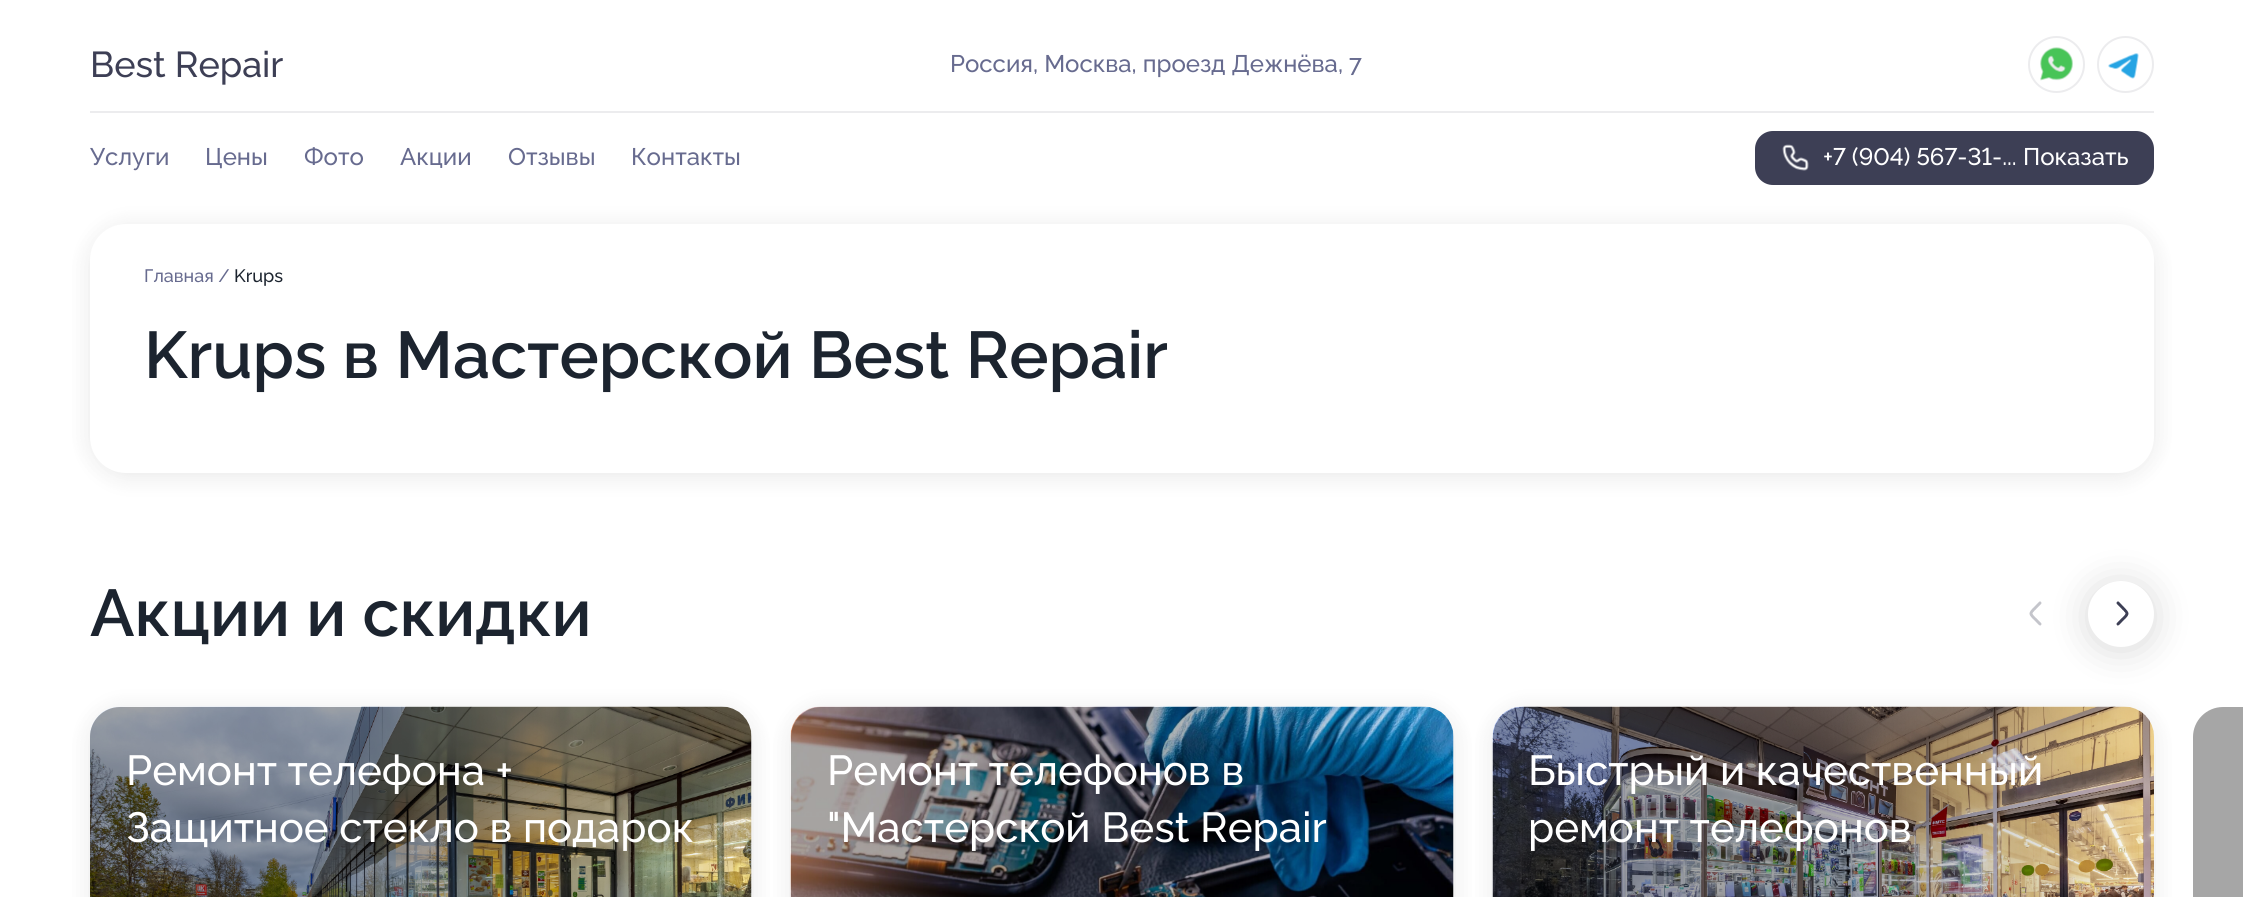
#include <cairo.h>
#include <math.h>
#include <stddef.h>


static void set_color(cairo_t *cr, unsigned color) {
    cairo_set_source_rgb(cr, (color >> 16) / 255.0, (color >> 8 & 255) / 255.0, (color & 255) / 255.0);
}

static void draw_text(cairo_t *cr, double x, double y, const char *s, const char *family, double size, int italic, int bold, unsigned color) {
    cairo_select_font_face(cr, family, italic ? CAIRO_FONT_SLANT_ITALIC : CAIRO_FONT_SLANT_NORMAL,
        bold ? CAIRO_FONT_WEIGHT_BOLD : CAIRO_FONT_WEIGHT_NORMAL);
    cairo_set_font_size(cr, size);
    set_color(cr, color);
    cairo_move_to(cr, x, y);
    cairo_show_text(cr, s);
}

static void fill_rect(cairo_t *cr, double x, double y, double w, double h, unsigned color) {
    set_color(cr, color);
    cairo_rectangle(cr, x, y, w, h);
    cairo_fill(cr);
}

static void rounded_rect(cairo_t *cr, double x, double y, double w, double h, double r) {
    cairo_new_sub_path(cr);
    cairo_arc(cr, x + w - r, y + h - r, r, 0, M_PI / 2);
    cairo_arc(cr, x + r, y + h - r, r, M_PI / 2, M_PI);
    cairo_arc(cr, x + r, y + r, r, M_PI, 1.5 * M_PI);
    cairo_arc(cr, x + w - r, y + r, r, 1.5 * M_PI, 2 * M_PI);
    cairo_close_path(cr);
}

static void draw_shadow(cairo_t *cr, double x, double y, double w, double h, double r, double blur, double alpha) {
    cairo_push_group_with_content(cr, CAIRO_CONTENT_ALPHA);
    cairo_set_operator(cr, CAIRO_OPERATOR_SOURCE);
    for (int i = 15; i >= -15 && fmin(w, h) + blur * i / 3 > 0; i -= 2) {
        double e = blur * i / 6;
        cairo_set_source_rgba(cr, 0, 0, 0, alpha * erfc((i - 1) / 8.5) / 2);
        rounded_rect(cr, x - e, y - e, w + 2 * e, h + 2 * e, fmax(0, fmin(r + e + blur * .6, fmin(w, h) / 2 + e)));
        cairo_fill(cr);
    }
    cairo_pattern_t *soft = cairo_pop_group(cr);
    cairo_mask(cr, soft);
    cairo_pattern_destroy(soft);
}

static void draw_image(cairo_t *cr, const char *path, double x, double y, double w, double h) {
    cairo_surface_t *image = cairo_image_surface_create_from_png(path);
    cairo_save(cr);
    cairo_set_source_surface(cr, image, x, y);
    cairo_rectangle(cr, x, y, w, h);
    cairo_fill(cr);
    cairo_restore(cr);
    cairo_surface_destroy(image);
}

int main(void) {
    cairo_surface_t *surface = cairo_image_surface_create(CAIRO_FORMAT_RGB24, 2243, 897);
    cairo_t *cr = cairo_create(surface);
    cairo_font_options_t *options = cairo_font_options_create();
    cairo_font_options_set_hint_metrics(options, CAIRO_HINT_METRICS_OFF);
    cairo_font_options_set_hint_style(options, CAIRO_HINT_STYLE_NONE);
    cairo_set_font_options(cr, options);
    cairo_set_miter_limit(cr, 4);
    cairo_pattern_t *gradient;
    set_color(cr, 0xFFFFFF);
    cairo_paint(cr);
    fill_rect(cr, 90, 111, 2064, 2, 0xECECEE);
    draw_text(cr, 90, 77, "Best Repair", "Raleway Medium", 36, 0, 0, 0x3D3F55);
    draw_text(cr, 950, 72, "Россия, Москва, проезд Дежнёва, 7", "Raleway Medium", 24, 0, 0, 0x676B8F);
    cairo_new_path(cr);
    cairo_arc(cr, 2056.5, 64.5, 27.5, 0, 2 * M_PI);
    set_color(cr, 0xECECEE);
    cairo_stroke(cr);
    draw_image(cr, "assets/img1.png", 2040, 47, 33, 34);
    cairo_arc(cr, 2125.5, 64.5, 27.5, 0, 2 * M_PI);
    cairo_stroke(cr);
    draw_image(cr, "assets/img2.png", 2108, 53, 31, 26);
    draw_text(cr, 90, 165, "Услуги", "Raleway Medium", 24, 0, 0, 0x676B8F);
    draw_text(cr, 205, 165, "Цены", "Raleway Medium", 24, 0, 0, 0x676B8F);
    draw_text(cr, 304, 165, "Фото", "Raleway Medium", 24, 0, 0, 0x676B8F);
    draw_text(cr, 400, 165, "Акции", "Raleway Medium", 24, 0, 0, 0x676B8F);
    draw_text(cr, 508, 165, "Отзывы", "Raleway Medium", 24, 0, 0, 0x676B8F);
    draw_text(cr, 631, 165, "Контакты", "Raleway Medium", 24, 0, 0, 0x676B8F);
    set_color(cr, 0x3D3F55);
    rounded_rect(cr, 1756, 132, 397, 52, 17);
    cairo_fill_preserve(cr);
    cairo_stroke(cr);
    draw_image(cr, "assets/img3.png", 1782, 144, 27, 27);
    draw_text(cr, 1823, 165, "+7 (904) 567-31-...", "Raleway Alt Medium", 24, 0, 0, 0xFFFFFF);
    draw_text(cr, 2023, 165, "Показать", "Raleway Medium", 24, 0, 0, 0xFFFFFF);
    set_color(cr, 0x000000);
    draw_shadow(cr, 90, 224, 2064, 249, 36, 12, 0.05);
    draw_shadow(cr, 90, 230, 2064, 249, 36, 12, 0.05);
    set_color(cr, 0xFFFFFF);
    rounded_rect(cr, 90, 224, 2064, 249, 36);
    cairo_fill(cr);
    draw_text(cr, 144, 282, "Главная /", "Raleway Medium", 18, 0, 0, 0x676B8F);
    draw_text(cr, 234, 282, "Krups", "Raleway Medium", 18, 0, 0, 0x1C242F);
    draw_text(cr, 144, 378, "Krups в Мастерской Best Repair", "Raleway SemiBold", 66, 0, 0, 0x1C242F);
    draw_text(cr, 90, 636, "Акции и скидки", "Raleway SemiBold", 66, 0, 0, 0x1C242F);
    set_color(cr, 0x000000);
    draw_shadow(cr, 2088, 584, 66, 66, 33, 19, 0.15);
    set_color(cr, 0xFFFFFF);
    cairo_arc(cr, 2121, 614, 33, 0, 2 * M_PI);
    cairo_fill(cr);
    draw_image(cr, "assets/img4.png", 2116, 601, 13, 25);
    draw_image(cr, "assets/img5.png", 2029, 601, 13, 25);
    set_color(cr, 0x000000);
    draw_shadow(cr, 90, 707, 662, 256, 30, 12, 0.05);
    draw_shadow(cr, 90, 713, 662, 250, 30, 12, 0.05);
    draw_image(cr, "assets/img6.png", 90, 706, 662, 191);
    gradient = cairo_pattern_create_linear(752, 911, 90, 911);
    cairo_pattern_add_color_stop_rgba(gradient, 0, 0, 0, 0, 0);
    cairo_pattern_add_color_stop_rgba(gradient, 0.52, 0, 0, 0, 0.35);
    cairo_set_source(cr, gradient);
    cairo_pattern_destroy(gradient);
    rounded_rect(cr, 90, 707, 662, 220, 30);
    cairo_fill(cr);
    draw_text(cr, 126, 785, "Ремонт телефона +", "Raleway Medium", 42, 0, 0, 0xFFFFFF);
    draw_text(cr, 126, 842, "Защитное стекло в подарок", "Raleway Medium", 42, 0, 0, 0xFFFFFF);
    set_color(cr, 0x000000);
    draw_shadow(cr, 791, 707, 663, 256, 30, 12, 0.05);
    draw_shadow(cr, 791, 713, 663, 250, 30, 12, 0.05);
    draw_image(cr, "assets/img7.png", 790, 706, 664, 191);
    gradient = cairo_pattern_create_linear(1454, 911, 791, 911);
    cairo_pattern_add_color_stop_rgba(gradient, 0, 0, 0, 0, 0);
    cairo_pattern_add_color_stop_rgba(gradient, 0.52, 0, 0, 0, 0.35);
    cairo_set_source(cr, gradient);
    cairo_pattern_destroy(gradient);
    rounded_rect(cr, 791, 707, 663, 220, 30);
    cairo_fill(cr);
    draw_text(cr, 827, 785, "Ремонт телефонов в", "Raleway Medium", 42, 0, 0, 0xFFFFFF);
    draw_text(cr, 827, 842, "\"Мастерской Best Repair", "Raleway Medium", 42, 0, 0, 0xFFFFFF);
    set_color(cr, 0x000000);
    draw_shadow(cr, 1493, 707, 661, 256, 30, 12, 0.05);
    draw_shadow(cr, 1493, 713, 661, 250, 30, 12, 0.05);
    draw_image(cr, "assets/img8.png", 1492, 706, 662, 191);
    gradient = cairo_pattern_create_linear(2154, 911, 1493, 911);
    cairo_pattern_add_color_stop_rgba(gradient, 0, 0, 0, 0, 0);
    cairo_pattern_add_color_stop_rgba(gradient, 0.52, 0, 0, 0, 0.35);
    cairo_set_source(cr, gradient);
    cairo_pattern_destroy(gradient);
    rounded_rect(cr, 1493, 707, 661, 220, 30);
    cairo_fill(cr);
    draw_text(cr, 1528, 785, "Быстрый и качественный", "Raleway Medium", 42, 0, 0, 0xFFFFFF);
    draw_text(cr, 1528, 842, "ремонт телефонов", "Raleway Medium", 42, 0, 0, 0xFFFFFF);
    gradient = cairo_pattern_create_linear(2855, 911, 2193, 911);
    cairo_pattern_add_color_stop_rgba(gradient, 0, 0, 0, 0, 0);
    cairo_pattern_add_color_stop_rgba(gradient, 0.52, 0, 0, 0, 0.35);
    cairo_set_source(cr, gradient);
    cairo_pattern_destroy(gradient);
    cairo_new_path(cr);
    cairo_move_to(cr, 2223, 707);
    cairo_line_to(cr, 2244, 707);
    cairo_line_to(cr, 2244, 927);
    cairo_line_to(cr, 2223, 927);
    cairo_curve_to(cr, 2206.5, 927, 2193, 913.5, 2193, 897);
    cairo_line_to(cr, 2193, 737);
    cairo_curve_to(cr, 2193, 720.5, 2206.5, 707, 2223, 707);
    cairo_close_path(cr);
    cairo_fill(cr);
    cairo_surface_write_to_png(surface, "output.png");
    cairo_font_options_destroy(options);
    cairo_destroy(cr);
    cairo_surface_destroy(surface);
    return 0;
}
